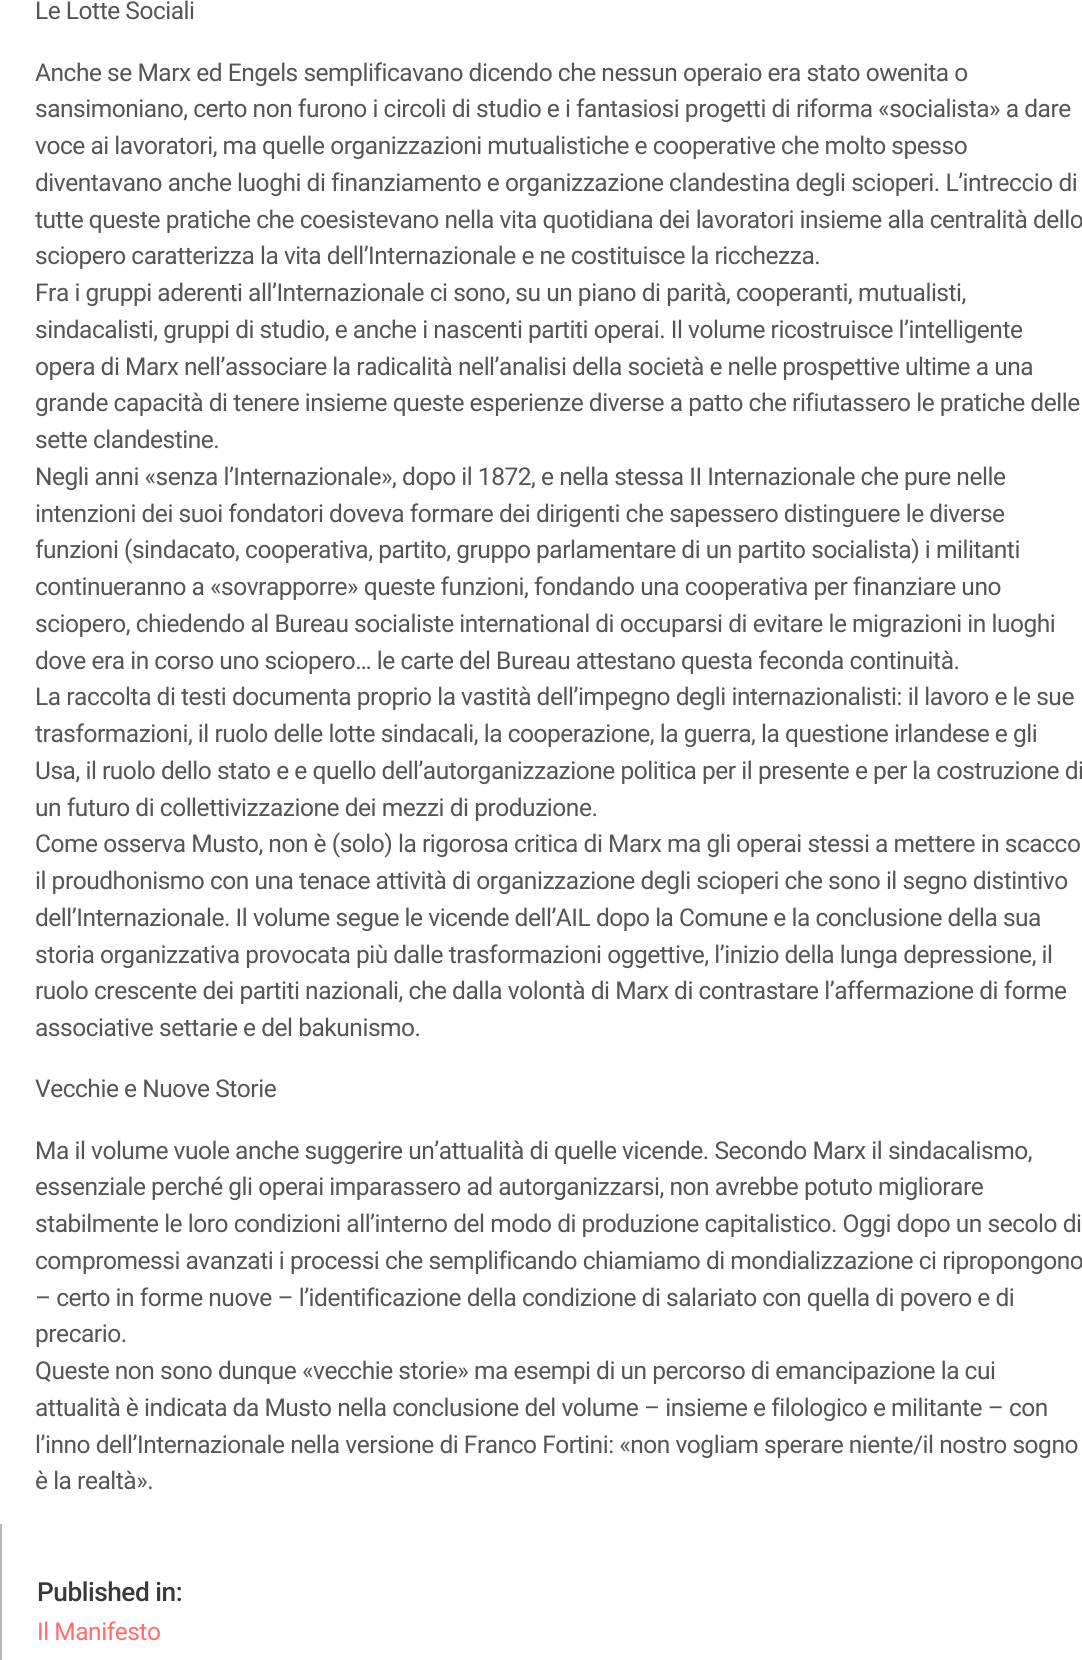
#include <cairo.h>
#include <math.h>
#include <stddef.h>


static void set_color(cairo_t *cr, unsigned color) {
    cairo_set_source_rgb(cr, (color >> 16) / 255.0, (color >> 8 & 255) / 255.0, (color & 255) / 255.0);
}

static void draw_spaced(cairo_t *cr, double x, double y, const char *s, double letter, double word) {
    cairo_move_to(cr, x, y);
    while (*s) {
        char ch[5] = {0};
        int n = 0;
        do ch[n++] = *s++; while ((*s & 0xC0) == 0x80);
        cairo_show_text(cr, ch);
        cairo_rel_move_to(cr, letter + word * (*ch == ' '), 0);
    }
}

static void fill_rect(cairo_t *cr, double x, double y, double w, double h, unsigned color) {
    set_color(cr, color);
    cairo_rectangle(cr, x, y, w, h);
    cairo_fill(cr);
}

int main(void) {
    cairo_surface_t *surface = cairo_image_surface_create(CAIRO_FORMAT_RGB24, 1082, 1660);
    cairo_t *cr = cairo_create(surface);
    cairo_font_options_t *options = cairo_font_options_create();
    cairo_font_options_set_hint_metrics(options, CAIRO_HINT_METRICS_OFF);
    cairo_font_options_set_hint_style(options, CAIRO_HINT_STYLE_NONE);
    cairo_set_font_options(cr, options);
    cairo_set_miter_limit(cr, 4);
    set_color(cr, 0xFFFFFF);
    cairo_paint(cr);
    cairo_select_font_face(cr, "Roboto", CAIRO_FONT_SLANT_NORMAL, CAIRO_FONT_WEIGHT_NORMAL);
    cairo_set_font_size(cr, 24.5);
    set_color(cr, 0x565555);
    draw_spaced(cr, 35, 19, "Le Lotte Sociali", -0.47, 0);
    draw_spaced(cr, 35, 81, "Anche se Marx ed Engels semplificavano dicendo che nessun operaio era stato owenita o", -0.47, 0);
    draw_spaced(cr, 35, 117, "sansimoniano, certo non furono i circoli di studio e i fantasiosi progetti di riforma «socialista» a dare", -0.47, 0);
    draw_spaced(cr, 35, 154, "voce ai lavoratori, ma quelle organizzazioni mutualistiche e cooperative che molto spesso", -0.47, 0);
    draw_spaced(cr, 35, 191, "diventavano anche luoghi di finanziamento e organizzazione clandestina degli scioperi. L’intreccio di", -0.47, 0);
    draw_spaced(cr, 35, 228, "tutte queste pratiche che coesistevano nella vita quotidiana dei lavoratori insieme alla centralità dello", -0.47, 0);
    draw_spaced(cr, 35, 264, "sciopero caratterizza la vita dell’Internazionale e ne costituisce la ricchezza.", -0.47, 0);
    draw_spaced(cr, 35, 301, "Fra i gruppi aderenti all’Internazionale ci sono, su un piano di parità, cooperanti, mutualisti,", -0.47, 0);
    draw_spaced(cr, 35, 338, "sindacalisti, gruppi di studio, e anche i nascenti partiti operai. Il volume ricostruisce l’intelligente", -0.47, 0);
    draw_spaced(cr, 35, 375, "opera di Marx nell’associare la radicalità nell’analisi della società e nelle prospettive ultime a una", -0.47, 0);
    draw_spaced(cr, 35, 411, "grande capacità di tenere insieme queste esperienze diverse a patto che rifiutassero le pratiche delle", -0.47, 0);
    draw_spaced(cr, 35, 448, "sette clandestine.", -0.47, 0);
    draw_spaced(cr, 35, 485, "Negli anni «senza l’Internazionale», dopo il 1872, e nella stessa II Internazionale che pure nelle", -0.47, 0);
    draw_spaced(cr, 35, 522, "intenzioni dei suoi fondatori doveva formare dei dirigenti che sapessero distinguere le diverse", -0.47, 0);
    draw_spaced(cr, 35, 558, "funzioni (sindacato, cooperativa, partito, gruppo parlamentare di un partito socialista) i militanti", -0.47, 0);
    draw_spaced(cr, 35, 595, "continueranno a «sovrapporre» queste funzioni, fondando una cooperativa per finanziare uno", -0.47, 0);
    draw_spaced(cr, 35, 632, "sciopero, chiedendo al Bureau socialiste international di occuparsi di evitare le migrazioni in luoghi", -0.47, 0);
    draw_spaced(cr, 35, 669, "dove era in corso uno sciopero… le carte del Bureau attestano questa feconda continuità.", -0.47, 0);
    draw_spaced(cr, 35, 705, "La raccolta di testi documenta proprio la vastità dell’impegno degli internazionalisti: il lavoro e le sue", -0.47, 0);
    draw_spaced(cr, 35, 742, "trasformazioni, il ruolo delle lotte sindacali, la cooperazione, la guerra, la questione irlandese e gli", -0.47, 0);
    draw_spaced(cr, 35, 779, "Usa, il ruolo dello stato e e quello dell’autorganizzazione politica per il presente e per la costruzione di", -0.47, 0);
    draw_spaced(cr, 35, 816, "un futuro di collettivizzazione dei mezzi di produzione.", -0.47, 0);
    draw_spaced(cr, 35, 852, "Come osserva Musto, non è (solo) la rigorosa critica di Marx ma gli operai stessi a mettere in scacco", -0.47, 0);
    draw_spaced(cr, 35, 889, "il proudhonismo con una tenace attività di organizzazione degli scioperi che sono il segno distintivo", -0.47, 0);
    draw_spaced(cr, 35, 926, "dell’Internazionale. Il volume segue le vicende dell’AIL dopo la Comune e la conclusione della sua", -0.47, 0);
    draw_spaced(cr, 35, 963, "storia organizzativa provocata più dalle trasformazioni oggettive, l’inizio della lunga depressione, il", -0.47, 0);
    draw_spaced(cr, 35, 999, "ruolo crescente dei partiti nazionali, che dalla volontà di Marx di contrastare l’affermazione di forme", -0.47, 0);
    draw_spaced(cr, 35, 1036, "associative settarie e del bakunismo.", -0.47, 0);
    draw_spaced(cr, 35, 1097, "Vecchie e Nuove Storie", -0.47, 0);
    draw_spaced(cr, 35, 1159, "Ma il volume vuole anche suggerire un’attualità di quelle vicende. Secondo Marx il sindacalismo,", -0.47, 0);
    draw_spaced(cr, 35, 1195, "essenziale perché gli operai imparassero ad autorganizzarsi, non avrebbe potuto migliorare", -0.47, 0);
    draw_spaced(cr, 35, 1232, "stabilmente le loro condizioni all’interno del modo di produzione capitalistico. Oggi dopo un secolo di", -0.47, 0);
    draw_spaced(cr, 35, 1269, "compromessi avanzati i processi che semplificando chiamiamo di mondializzazione ci ripropongono", -0.47, 0);
    draw_spaced(cr, 35, 1306, "– certo in forme nuove – l’identificazione della condizione di salariato con quella di povero e di", -0.47, 0);
    draw_spaced(cr, 35, 1342, "precario.", -0.47, 0);
    draw_spaced(cr, 35, 1379, "Queste non sono dunque «vecchie storie» ma esempi di un percorso di emancipazione la cui", -0.47, 0);
    draw_spaced(cr, 35, 1416, "attualità è indicata da Musto nella conclusione del volume – insieme e filologico e militante – con", -0.47, 0);
    draw_spaced(cr, 35, 1453, "l’inno dell’Internazionale nella versione di Franco Fortini: «non vogliam sperare niente/il nostro sogno", -0.47, 0);
    draw_spaced(cr, 35, 1489, "è la realtà».", -0.47, 0);
    fill_rect(cr, 0, 1524, 2, 136, 0xB8B8B8);
    cairo_select_font_face(cr, "Roboto Medium", CAIRO_FONT_SLANT_NORMAL, CAIRO_FONT_WEIGHT_NORMAL);
    cairo_set_font_size(cr, 26.25);
    set_color(cr, 0x393939);
    draw_spaced(cr, 37, 1601, "Published in:", -0.47, 0);
    cairo_select_font_face(cr, "Roboto", CAIRO_FONT_SLANT_NORMAL, CAIRO_FONT_WEIGHT_NORMAL);
    cairo_set_font_size(cr, 24.5);
    set_color(cr, 0xFF6D6D);
    draw_spaced(cr, 37, 1640, "Il Manifesto", -0.47, 0);
    cairo_surface_write_to_png(surface, "output.png");
    cairo_font_options_destroy(options);
    cairo_destroy(cr);
    cairo_surface_destroy(surface);
    return 0;
}
